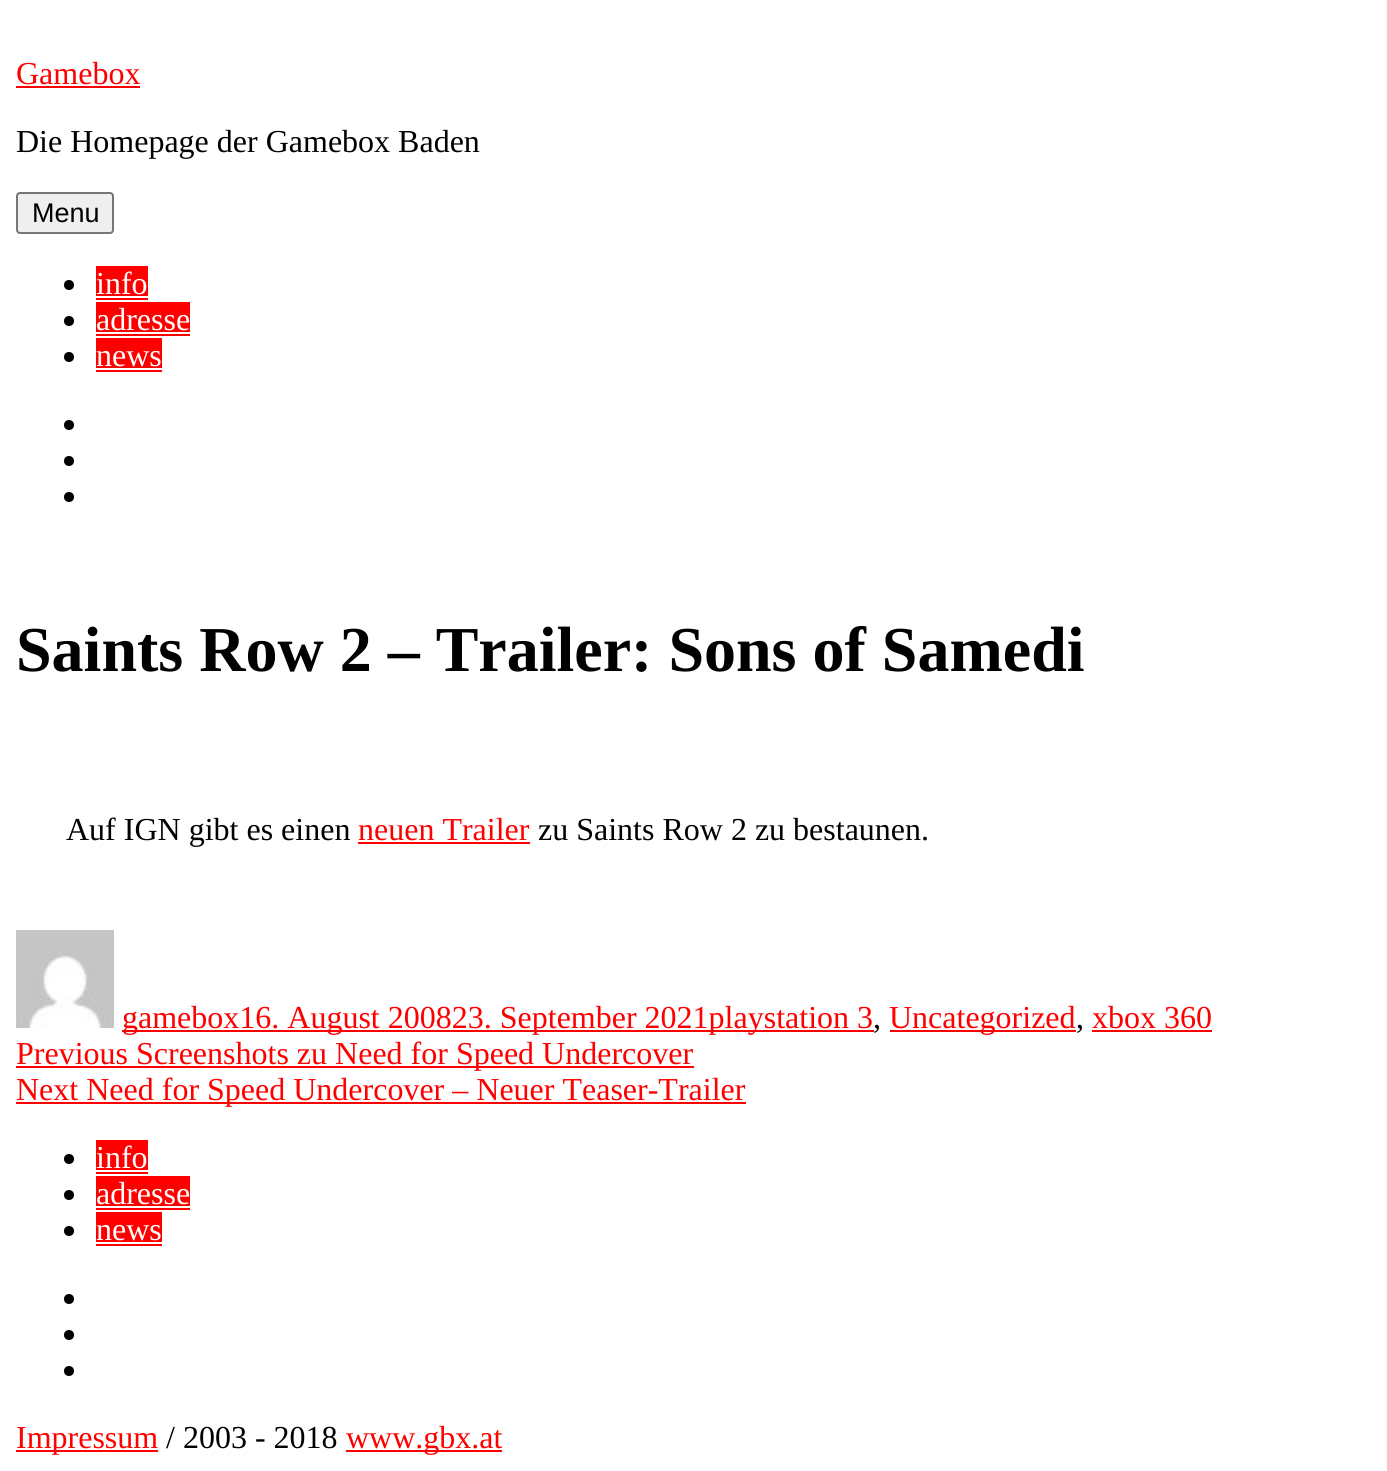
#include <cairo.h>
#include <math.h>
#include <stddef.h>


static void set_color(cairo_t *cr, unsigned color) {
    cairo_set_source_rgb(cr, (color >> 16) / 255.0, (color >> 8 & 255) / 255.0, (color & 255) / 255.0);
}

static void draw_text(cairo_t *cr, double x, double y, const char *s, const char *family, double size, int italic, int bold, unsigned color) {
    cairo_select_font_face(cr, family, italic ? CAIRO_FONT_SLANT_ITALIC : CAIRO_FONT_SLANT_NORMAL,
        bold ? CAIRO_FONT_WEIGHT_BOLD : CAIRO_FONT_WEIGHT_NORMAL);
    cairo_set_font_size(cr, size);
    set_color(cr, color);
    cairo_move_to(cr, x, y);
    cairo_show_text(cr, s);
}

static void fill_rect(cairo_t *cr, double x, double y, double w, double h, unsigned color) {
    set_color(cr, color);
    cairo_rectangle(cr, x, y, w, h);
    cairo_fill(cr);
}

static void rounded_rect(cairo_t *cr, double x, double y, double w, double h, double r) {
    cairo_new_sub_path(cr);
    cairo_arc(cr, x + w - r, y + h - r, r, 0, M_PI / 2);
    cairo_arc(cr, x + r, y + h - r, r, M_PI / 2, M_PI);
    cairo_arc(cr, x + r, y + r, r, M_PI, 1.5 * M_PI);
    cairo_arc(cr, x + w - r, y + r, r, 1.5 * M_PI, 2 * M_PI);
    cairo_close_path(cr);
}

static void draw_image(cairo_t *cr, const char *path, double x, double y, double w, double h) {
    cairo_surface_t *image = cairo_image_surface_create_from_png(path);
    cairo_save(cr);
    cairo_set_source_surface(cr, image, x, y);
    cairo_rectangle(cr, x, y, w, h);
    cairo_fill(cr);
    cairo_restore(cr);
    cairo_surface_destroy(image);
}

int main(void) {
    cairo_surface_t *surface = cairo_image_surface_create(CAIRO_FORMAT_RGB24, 1387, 1471);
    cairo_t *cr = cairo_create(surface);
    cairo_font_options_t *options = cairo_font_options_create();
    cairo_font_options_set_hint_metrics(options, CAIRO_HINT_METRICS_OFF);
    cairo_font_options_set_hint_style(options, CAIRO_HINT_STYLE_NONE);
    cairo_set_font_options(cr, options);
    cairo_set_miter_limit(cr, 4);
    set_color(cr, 0xFFFFFF);
    cairo_paint(cr);
    draw_text(cr, 16, 84, "Gamebox", "Liberation Serif", 32, 0, 0, 0xFF0000);
    fill_rect(cr, 16, 86, 124, 2, 0xFF0000);
    draw_text(cr, 16, 152, "Die Homepage der Gamebox Baden", "Liberation Serif", 32, 0, 0, 0x000000);
    set_color(cr, 0xEFEFEF);
    rounded_rect(cr, 17, 193, 96, 40, 3);
    cairo_fill_preserve(cr);
    set_color(cr, 0x767676);
    cairo_stroke(cr);
    draw_text(cr, 32, 222, "Menu", "Liberation Sans", 27, 0, 0, 0x000000);
    cairo_new_path(cr);
    cairo_arc(cr, 69, 285, 5, 0, 2 * M_PI);
    cairo_fill(cr);
    fill_rect(cr, 96, 266, 52, 34, 0xFF0000);
    draw_text(cr, 96, 294, "info", "Liberation Serif", 32, 0, 0, 0xFFFFFF);
    fill_rect(cr, 96, 296, 52, 2, 0xFFFFFF);
    set_color(cr, 0x000000);
    cairo_new_path(cr);
    cairo_arc(cr, 69, 321, 5, 0, 2 * M_PI);
    cairo_fill(cr);
    fill_rect(cr, 96, 302, 94, 34, 0xFF0000);
    draw_text(cr, 96, 330, "adresse", "Liberation Serif", 32, 0, 0, 0xFFFFFF);
    fill_rect(cr, 96, 332, 94, 2, 0xFFFFFF);
    set_color(cr, 0x000000);
    cairo_new_path(cr);
    cairo_arc(cr, 69, 357, 5, 0, 2 * M_PI);
    cairo_fill(cr);
    fill_rect(cr, 96, 338, 66, 34, 0xFF0000);
    draw_text(cr, 96, 366, "news", "Liberation Serif", 32, 0, 0, 0xFFFFFF);
    fill_rect(cr, 96, 368, 66, 2, 0xFFFFFF);
    set_color(cr, 0x000000);
    cairo_new_path(cr);
    cairo_arc(cr, 69, 425, 5, 0, 2 * M_PI);
    cairo_fill(cr);
    cairo_arc(cr, 69, 461, 5, 0, 2 * M_PI);
    cairo_fill(cr);
    cairo_arc(cr, 69, 497, 5, 0, 2 * M_PI);
    cairo_fill(cr);
    draw_text(cr, 16, 671, "Saints Row 2 – Trailer: Sons of Samedi", "Liberation Serif", 64, 0, 1, 0x000000);
    draw_text(cr, 66, 840, "Auf IGN gibt es einen", "Liberation Serif", 32, 0, 0, 0x000000);
    draw_text(cr, 358, 840, "neuen Trailer", "Liberation Serif", 32, 0, 0, 0xFF0000);
    fill_rect(cr, 358, 842, 172, 2, 0xFF0000);
    draw_text(cr, 538, 840, "zu Saints Row 2 zu bestaunen.", "Liberation Serif", 32, 0, 0, 0x000000);
    draw_image(cr, "assets/img1.png", 16, 930, 98, 98);
    fill_rect(cr, 122, 1030, 752, 2, 0xFF0000);
    draw_text(cr, 122, 1028, "gamebox16. August 200823. September 2021playstation 3", "Liberation Serif", 32, 0, 0, 0xFF0000);
    draw_text(cr, 873, 1028, ",", "Liberation Serif", 32, 0, 0, 0x000000);
    fill_rect(cr, 890, 1030, 186, 2, 0xFF0000);
    draw_text(cr, 889, 1028, "Uncategorized", "Liberation Serif", 32, 0, 0, 0xFF0000);
    draw_text(cr, 1076, 1028, ",", "Liberation Serif", 32, 0, 0, 0x000000);
    fill_rect(cr, 1092, 1030, 120, 2, 0xFF0000);
    draw_text(cr, 1092, 1028, "xbox 360", "Liberation Serif", 32, 0, 0, 0xFF0000);
    fill_rect(cr, 16, 1066, 678, 2, 0xFF0000);
    draw_text(cr, 16, 1064, "Previous Screenshots zu Need for Speed Undercover", "Liberation Serif", 32, 0, 0, 0xFF0000);
    fill_rect(cr, 16, 1102, 730, 2, 0xFF0000);
    draw_text(cr, 16, 1100, "Next Need for Speed Undercover – Neuer Teaser-Trailer", "Liberation Serif", 32, 0, 0, 0xFF0000);
    set_color(cr, 0x000000);
    cairo_new_path(cr);
    cairo_arc(cr, 69, 1159, 5, 0, 2 * M_PI);
    cairo_fill(cr);
    fill_rect(cr, 96, 1140, 52, 34, 0xFF0000);
    draw_text(cr, 96, 1168, "info", "Liberation Serif", 32, 0, 0, 0xFFFFFF);
    fill_rect(cr, 96, 1170, 52, 2, 0xFFFFFF);
    set_color(cr, 0x000000);
    cairo_new_path(cr);
    cairo_arc(cr, 69, 1195, 5, 0, 2 * M_PI);
    cairo_fill(cr);
    fill_rect(cr, 96, 1176, 94, 34, 0xFF0000);
    draw_text(cr, 96, 1204, "adresse", "Liberation Serif", 32, 0, 0, 0xFFFFFF);
    fill_rect(cr, 96, 1206, 94, 2, 0xFFFFFF);
    set_color(cr, 0x000000);
    cairo_new_path(cr);
    cairo_arc(cr, 69, 1231, 5, 0, 2 * M_PI);
    cairo_fill(cr);
    fill_rect(cr, 96, 1212, 66, 34, 0xFF0000);
    draw_text(cr, 96, 1240, "news", "Liberation Serif", 32, 0, 0, 0xFFFFFF);
    fill_rect(cr, 96, 1242, 66, 2, 0xFFFFFF);
    set_color(cr, 0x000000);
    cairo_new_path(cr);
    cairo_arc(cr, 69, 1299, 5, 0, 2 * M_PI);
    cairo_fill(cr);
    cairo_arc(cr, 69, 1335, 5, 0, 2 * M_PI);
    cairo_fill(cr);
    cairo_arc(cr, 69, 1371, 5, 0, 2 * M_PI);
    cairo_fill(cr);
    fill_rect(cr, 16, 1450, 142, 2, 0xFF0000);
    draw_text(cr, 16, 1448, "Impressum", "Liberation Serif", 32, 0, 0, 0xFF0000);
    draw_text(cr, 166, 1448, "/ 2003 - 2018", "Liberation Serif", 32, 0, 0, 0x000000);
    fill_rect(cr, 346, 1450, 156, 2, 0xFF0000);
    draw_text(cr, 346, 1448, "www.gbx.at", "Liberation Serif", 32, 0, 0, 0xFF0000);
    cairo_surface_write_to_png(surface, "output.png");
    cairo_font_options_destroy(options);
    cairo_destroy(cr);
    cairo_surface_destroy(surface);
    return 0;
}
